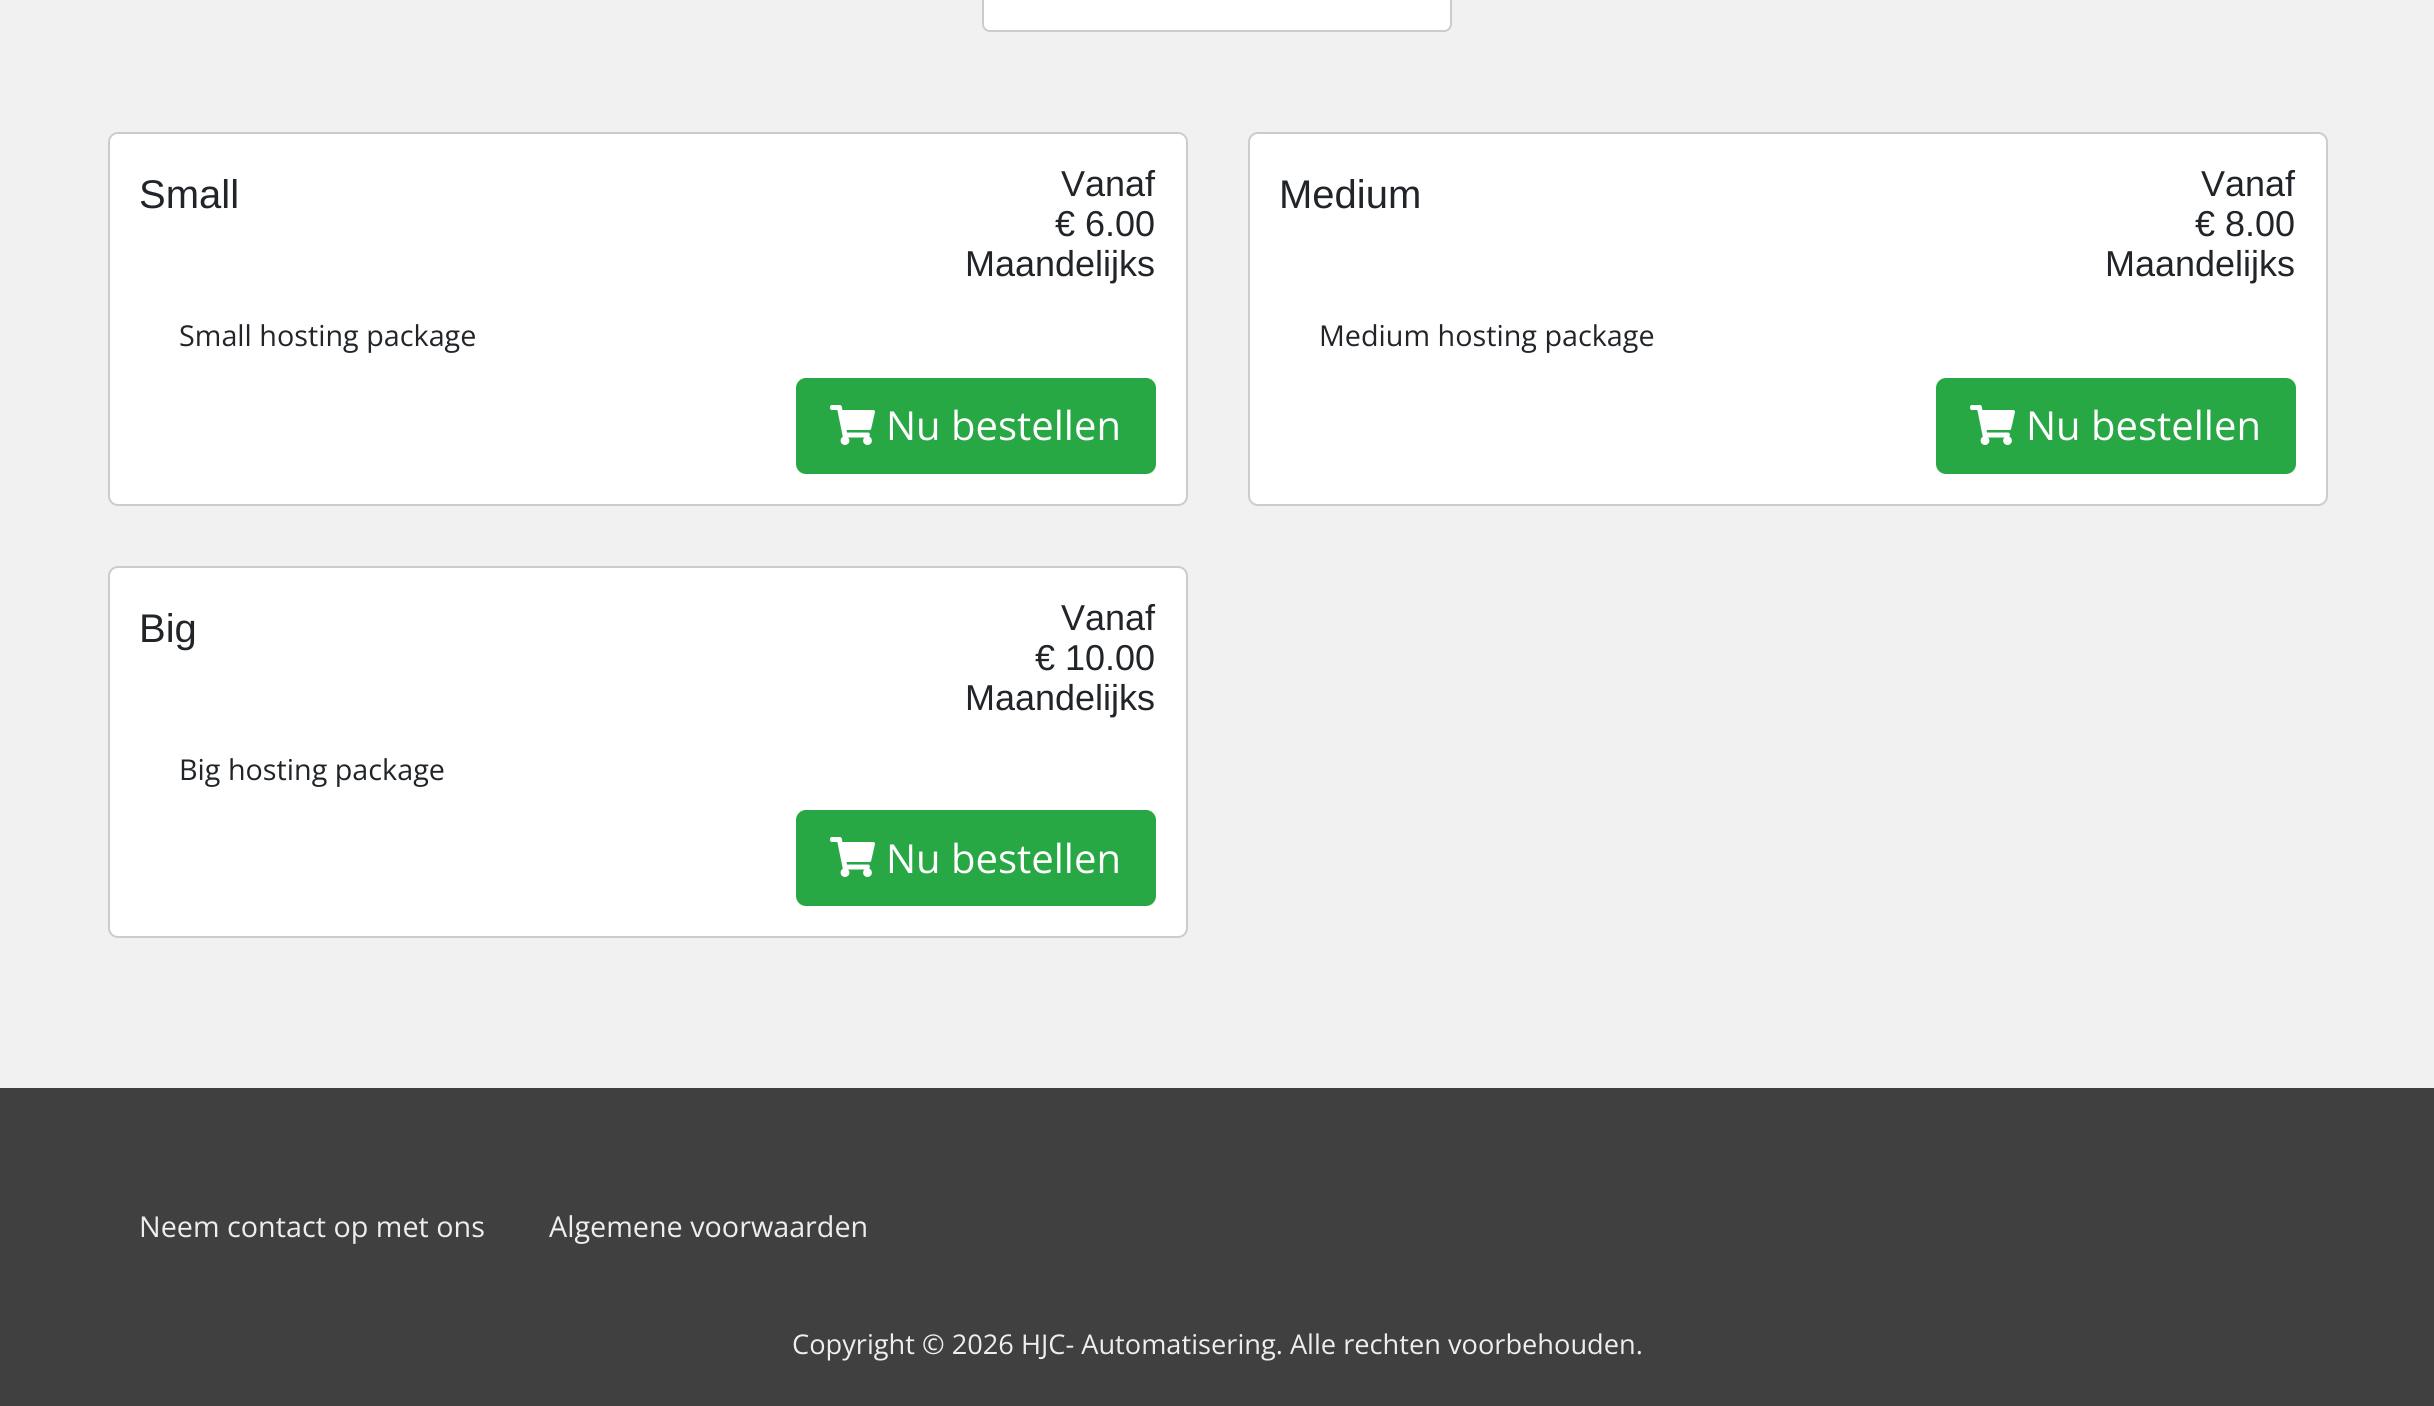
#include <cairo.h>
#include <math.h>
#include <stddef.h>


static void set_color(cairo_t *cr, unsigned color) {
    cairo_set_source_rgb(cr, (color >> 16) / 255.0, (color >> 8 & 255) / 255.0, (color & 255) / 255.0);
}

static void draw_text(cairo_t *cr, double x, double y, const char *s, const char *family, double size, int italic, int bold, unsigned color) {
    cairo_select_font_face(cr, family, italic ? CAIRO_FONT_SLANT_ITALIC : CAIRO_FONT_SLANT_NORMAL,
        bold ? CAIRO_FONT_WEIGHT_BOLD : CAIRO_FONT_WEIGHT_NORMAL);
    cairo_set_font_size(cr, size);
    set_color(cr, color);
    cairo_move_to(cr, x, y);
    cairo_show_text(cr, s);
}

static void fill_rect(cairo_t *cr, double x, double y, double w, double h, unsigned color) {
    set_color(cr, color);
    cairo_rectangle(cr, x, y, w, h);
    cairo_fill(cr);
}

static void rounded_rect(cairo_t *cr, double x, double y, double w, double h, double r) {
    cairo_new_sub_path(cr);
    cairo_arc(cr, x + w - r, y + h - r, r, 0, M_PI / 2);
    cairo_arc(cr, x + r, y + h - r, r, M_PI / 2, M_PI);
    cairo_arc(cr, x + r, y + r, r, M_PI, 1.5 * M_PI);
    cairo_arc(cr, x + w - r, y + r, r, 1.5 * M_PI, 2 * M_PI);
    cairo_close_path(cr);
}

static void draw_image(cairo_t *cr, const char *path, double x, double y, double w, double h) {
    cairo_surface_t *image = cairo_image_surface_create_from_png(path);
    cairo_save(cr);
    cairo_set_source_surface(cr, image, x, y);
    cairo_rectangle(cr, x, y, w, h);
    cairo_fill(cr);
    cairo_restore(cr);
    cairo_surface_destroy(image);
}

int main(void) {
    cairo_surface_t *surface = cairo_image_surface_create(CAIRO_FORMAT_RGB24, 2434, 1406);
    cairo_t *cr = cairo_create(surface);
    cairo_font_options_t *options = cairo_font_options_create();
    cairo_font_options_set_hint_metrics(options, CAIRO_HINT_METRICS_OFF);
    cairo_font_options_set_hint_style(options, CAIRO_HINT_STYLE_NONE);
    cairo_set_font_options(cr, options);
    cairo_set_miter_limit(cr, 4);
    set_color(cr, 0xF1F1F1);
    cairo_paint(cr);
    set_color(cr, 0xFFFFFF);
    rounded_rect(cr, 983, -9, 468, 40, 7);
    cairo_fill_preserve(cr);
    set_color(cr, 0xCCCCCC);
    cairo_stroke(cr);
    set_color(cr, 0xFFFFFF);
    rounded_rect(cr, 109, 133, 1078, 372, 9);
    cairo_fill_preserve(cr);
    set_color(cr, 0xCCCCCC);
    cairo_stroke(cr);
    draw_text(cr, 139, 208, "Small", "Liberation Sans", 40, 0, 0, 0x212529);
    draw_text(cr, 1061, 196, "Vanaf", "Liberation Sans", 36, 0, 0, 0x212529);
    draw_text(cr, 1055, 236, "€ 6.00", "Liberation Sans", 36, 0, 0, 0x212529);
    draw_text(cr, 965, 276, "Maandelijks", "Liberation Sans", 36, 0, 0, 0x212529);
    draw_text(cr, 179, 346, "Small hosting package", "Open Sans", 28.75, 0, 0, 0x212529);
    set_color(cr, 0x28A745);
    rounded_rect(cr, 797, 379, 358, 94, 9);
    cairo_fill_preserve(cr);
    cairo_stroke(cr);
    draw_image(cr, "assets/img1.png", 830, 405, 45, 40);
    draw_text(cr, 886, 440, "Nu bestellen", "Open Sans", 40, 0, 0, 0xFFFFFF);
    rounded_rect(cr, 1249, 133, 1078, 372, 9);
    cairo_fill_preserve(cr);
    set_color(cr, 0xCCCCCC);
    cairo_stroke(cr);
    draw_text(cr, 1279, 208, "Medium", "Liberation Sans", 40, 0, 0, 0x212529);
    draw_text(cr, 2201, 196, "Vanaf", "Liberation Sans", 36, 0, 0, 0x212529);
    draw_text(cr, 2195, 236, "€ 8.00", "Liberation Sans", 36, 0, 0, 0x212529);
    draw_text(cr, 2105, 276, "Maandelijks", "Liberation Sans", 36, 0, 0, 0x212529);
    draw_text(cr, 1319, 346, "Medium hosting package", "Open Sans", 28.75, 0, 0, 0x212529);
    set_color(cr, 0x28A745);
    rounded_rect(cr, 1937, 379, 358, 94, 9);
    cairo_fill_preserve(cr);
    cairo_stroke(cr);
    draw_image(cr, "assets/img1.png", 1970, 405, 45, 40);
    draw_text(cr, 2026, 440, "Nu bestellen", "Open Sans", 40, 0, 0, 0xFFFFFF);
    rounded_rect(cr, 109, 567, 1078, 370, 9);
    cairo_fill_preserve(cr);
    set_color(cr, 0xCCCCCC);
    cairo_stroke(cr);
    draw_text(cr, 139, 642, "Big", "Liberation Sans", 40, 0, 0, 0x212529);
    draw_text(cr, 1061, 630, "Vanaf", "Liberation Sans", 36, 0, 0, 0x212529);
    draw_text(cr, 1035, 670, "€ 10.00", "Liberation Sans", 36, 0, 0, 0x212529);
    draw_text(cr, 965, 710, "Maandelijks", "Liberation Sans", 36, 0, 0, 0x212529);
    draw_text(cr, 179, 780, "Big hosting package", "Open Sans", 28.75, 0, 0, 0x212529);
    set_color(cr, 0x28A745);
    rounded_rect(cr, 797, 811, 358, 94, 9);
    cairo_fill_preserve(cr);
    cairo_stroke(cr);
    draw_image(cr, "assets/img1.png", 830, 837, 45, 40);
    draw_text(cr, 886, 873, "Nu bestellen", "Open Sans", 40, 0, 0, 0xFFFFFF);
    fill_rect(cr, 0, 1088, 2434, 318, 0x404040);
    draw_text(cr, 139, 1237, "Neem contact op met ons", "Open Sans", 28.75, 0, 0, 0xEEEEEE);
    draw_text(cr, 549, 1237, "Algemene voorwaarden", "Open Sans", 28.75, 0, 0, 0xEEEEEE);
    draw_text(cr, 792, 1354, "Copyright © 2026 HJC- Automatisering. Alle rechten voorbehouden.", "Open Sans", 27.2, 0, 0, 0xEEEEEE);
    cairo_surface_write_to_png(surface, "output.png");
    cairo_font_options_destroy(options);
    cairo_destroy(cr);
    cairo_surface_destroy(surface);
    return 0;
}
